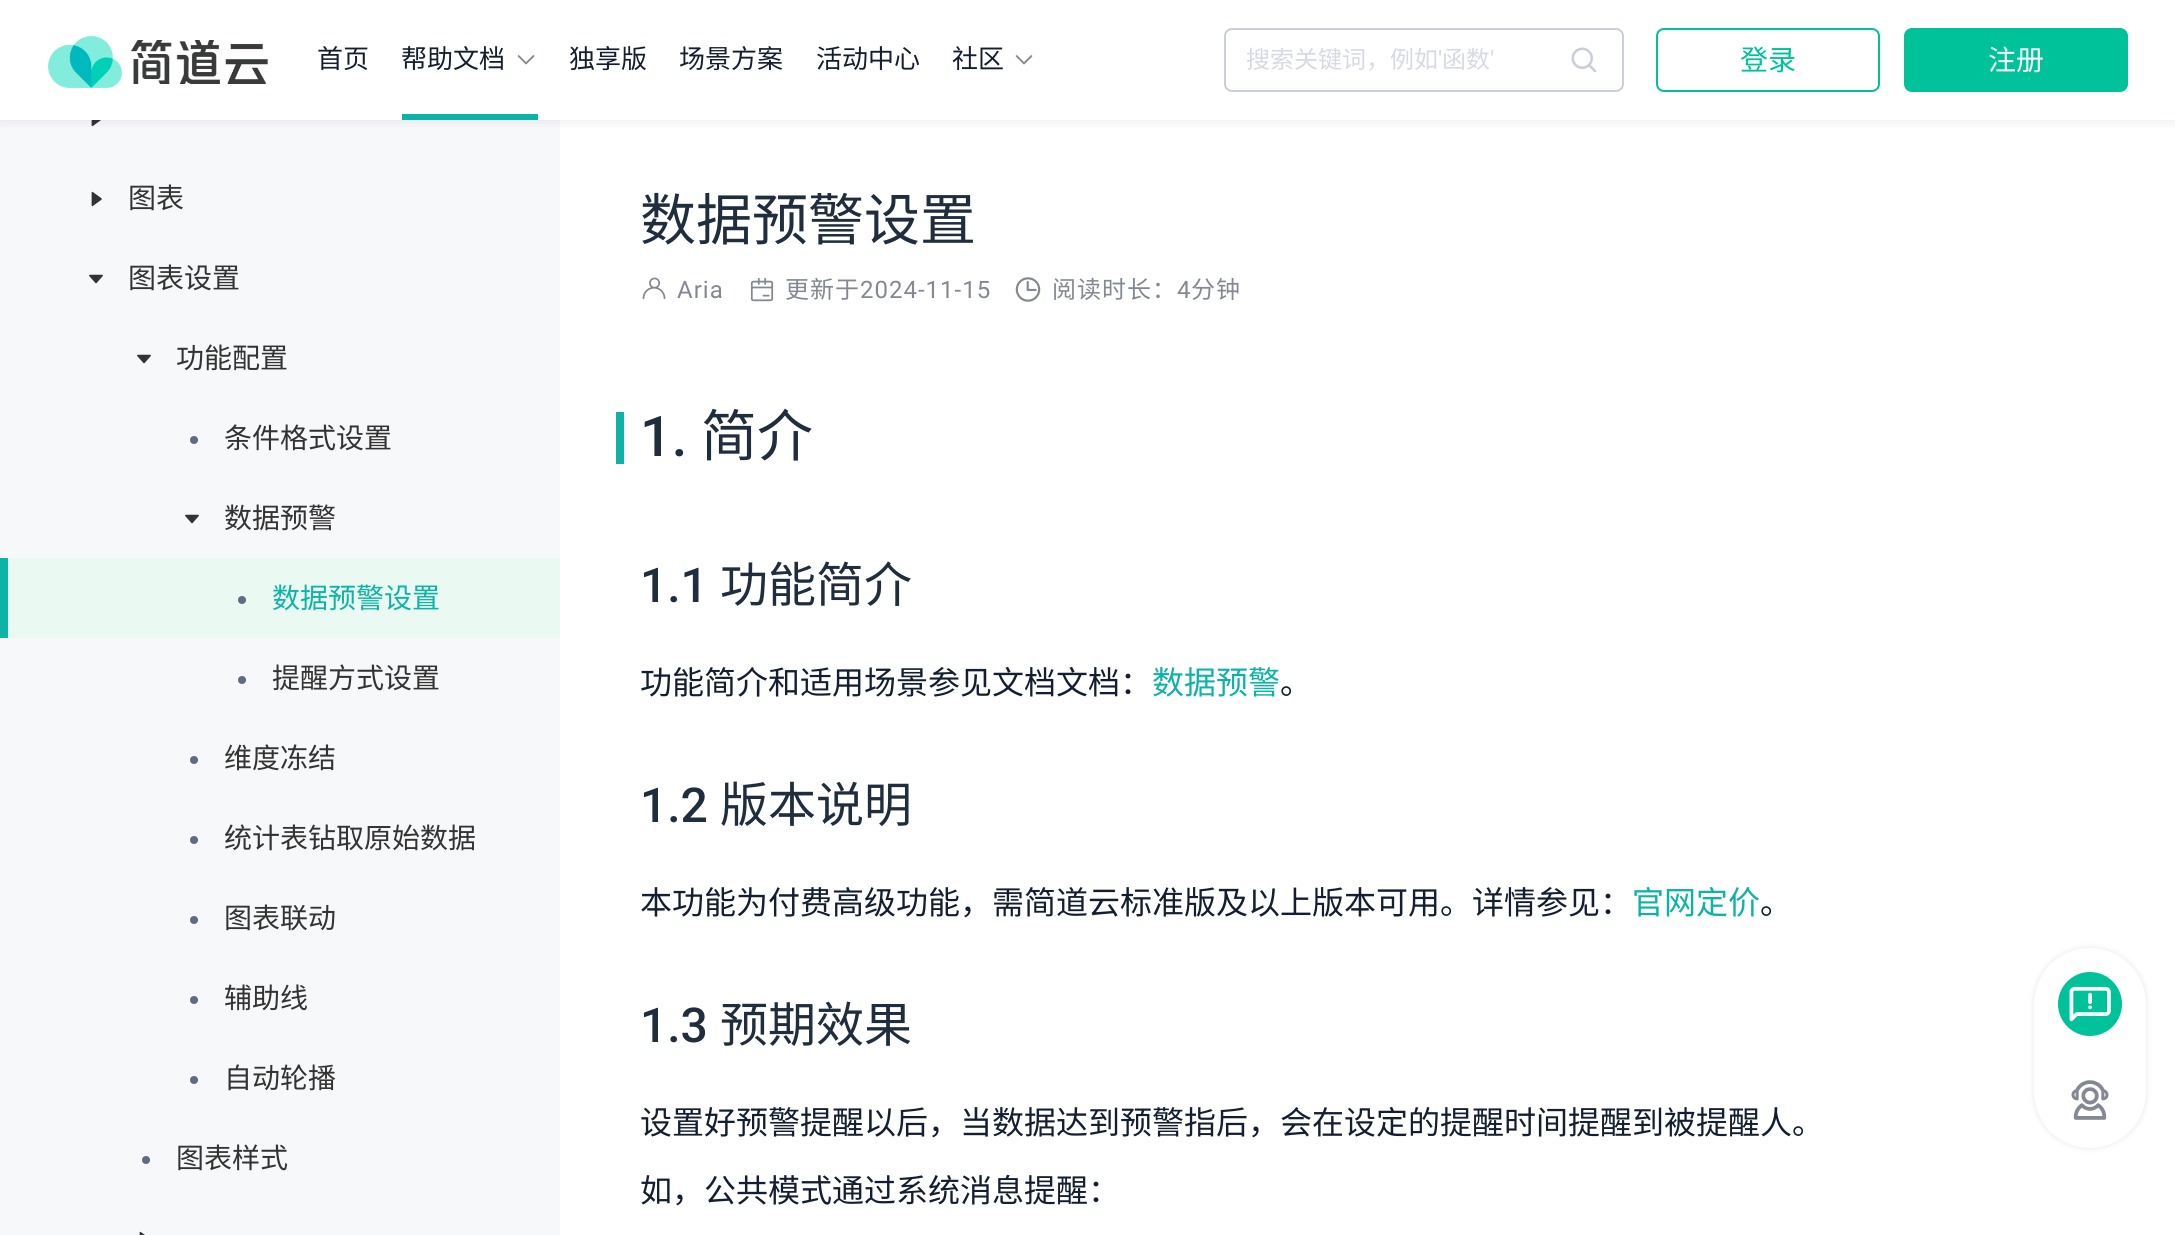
#include <cairo.h>
#include <math.h>
#include <stddef.h>


static void set_color(cairo_t *cr, unsigned color) {
    cairo_set_source_rgb(cr, (color >> 16) / 255.0, (color >> 8 & 255) / 255.0, (color & 255) / 255.0);
}

static void draw_text(cairo_t *cr, double x, double y, const char *s, const char *family, double size, int italic, int bold, unsigned color) {
    cairo_select_font_face(cr, family, italic ? CAIRO_FONT_SLANT_ITALIC : CAIRO_FONT_SLANT_NORMAL,
        bold ? CAIRO_FONT_WEIGHT_BOLD : CAIRO_FONT_WEIGHT_NORMAL);
    cairo_set_font_size(cr, size);
    set_color(cr, color);
    cairo_move_to(cr, x, y);
    cairo_show_text(cr, s);
}

static void draw_spaced(cairo_t *cr, double x, double y, const char *s, double letter, double word) {
    cairo_move_to(cr, x, y);
    while (*s) {
        char ch[5] = {0};
        int n = 0;
        do ch[n++] = *s++; while ((*s & 0xC0) == 0x80);
        cairo_show_text(cr, ch);
        cairo_rel_move_to(cr, letter + word * (*ch == ' '), 0);
    }
}

static void fill_rect(cairo_t *cr, double x, double y, double w, double h, unsigned color) {
    set_color(cr, color);
    cairo_rectangle(cr, x, y, w, h);
    cairo_fill(cr);
}

static void rounded_rect(cairo_t *cr, double x, double y, double w, double h, double r) {
    cairo_new_sub_path(cr);
    cairo_arc(cr, x + w - r, y + h - r, r, 0, M_PI / 2);
    cairo_arc(cr, x + r, y + h - r, r, M_PI / 2, M_PI);
    cairo_arc(cr, x + r, y + r, r, M_PI, 1.5 * M_PI);
    cairo_arc(cr, x + w - r, y + r, r, 1.5 * M_PI, 2 * M_PI);
    cairo_close_path(cr);
}

static void draw_shadow(cairo_t *cr, double x, double y, double w, double h, double r, double blur, double alpha) {
    cairo_push_group_with_content(cr, CAIRO_CONTENT_ALPHA);
    cairo_set_operator(cr, CAIRO_OPERATOR_SOURCE);
    for (int i = 15; i >= -15 && fmin(w, h) + blur * i / 3 > 0; i -= 2) {
        double e = blur * i / 6;
        cairo_set_source_rgba(cr, 0, 0, 0, alpha * erfc((i - 1) / 8.5) / 2);
        rounded_rect(cr, x - e, y - e, w + 2 * e, h + 2 * e, fmax(0, fmin(r + e + blur * .6, fmin(w, h) / 2 + e)));
        cairo_fill(cr);
    }
    cairo_pattern_t *soft = cairo_pop_group(cr);
    cairo_mask(cr, soft);
    cairo_pattern_destroy(soft);
}

static void draw_image(cairo_t *cr, const char *path, double x, double y, double w, double h) {
    cairo_surface_t *image = cairo_image_surface_create_from_png(path);
    cairo_save(cr);
    cairo_set_source_surface(cr, image, x, y);
    cairo_rectangle(cr, x, y, w, h);
    cairo_fill(cr);
    cairo_restore(cr);
    cairo_surface_destroy(image);
}

int main(void) {
    cairo_surface_t *surface = cairo_image_surface_create(CAIRO_FORMAT_RGB24, 2175, 1235);
    cairo_t *cr = cairo_create(surface);
    cairo_font_options_t *options = cairo_font_options_create();
    cairo_font_options_set_hint_metrics(options, CAIRO_HINT_METRICS_OFF);
    cairo_font_options_set_hint_style(options, CAIRO_HINT_STYLE_NONE);
    cairo_set_font_options(cr, options);
    cairo_set_miter_limit(cr, 4);
    set_color(cr, 0xFFFFFF);
    cairo_paint(cr);
    fill_rect(cr, 0, 120, 560, 1115, 0xF7F8FA);
    draw_image(cr, "assets/img4.png", 91, 120, 10, 7);
    cairo_save(cr);
    cairo_rectangle(cr, 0, 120, 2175, 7);
    cairo_clip(cr);
    set_color(cr, 0x141E31);
    draw_shadow(cr, 0, 0, 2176, 120, 0, 8, 0.1);
    cairo_restore(cr);
    draw_image(cr, "assets/img1.png", 48, 36, 220, 52);
    draw_text(cr, 317, 68, "首页", "Noto Sans CJK SC", 26, 0, 0, 0x141E31);
    draw_text(cr, 401, 68, "帮助文档", "Noto Sans CJK SC", 26, 0, 0, 0x141E31);
    draw_image(cr, "assets/img2.png", 517, 55, 18, 10);
    fill_rect(cr, 402, 114, 136, 6, 0x0DB3A6);
    draw_text(cr, 569, 68, "独享版", "Noto Sans CJK SC", 26, 0, 0, 0x141E31);
    draw_text(cr, 679, 68, "场景方案", "Noto Sans CJK SC", 26, 0, 0, 0x141E31);
    draw_text(cr, 816, 68, "活动中心", "Noto Sans CJK SC", 26, 0, 0, 0x141E31);
    draw_text(cr, 952, 68, "社区", "Noto Sans CJK SC", 26, 0, 0, 0x141E31);
    draw_image(cr, "assets/img2.png", 1015, 55, 18, 10);
    rounded_rect(cr, 1225, 29, 398, 62, 7);
    set_color(cr, 0xC9CED9);
    cairo_stroke(cr);
    draw_text(cr, 1246, 68, "搜索关键词，例如", "Noto Sans CJK SC", 24, 0, 0, 0xD6DAE3);
    draw_text(cr, 1438, 68, "'", "Roboto", 24, 0, 0, 0xD6DAE3);
    draw_text(cr, 1442, 68, "函数", "Noto Sans CJK SC", 24, 0, 0, 0xD6DAE3);
    draw_text(cr, 1490, 68, "'", "Roboto", 24, 0, 0, 0xD6DAE3);
    draw_image(cr, "assets/img3.png", 1571, 47, 26, 26);
    rounded_rect(cr, 1657, 29, 222, 62, 7);
    set_color(cr, 0x00C29A);
    cairo_stroke(cr);
    draw_text(cr, 1740, 70, "登录", "Noto Sans CJK SC", 28, 0, 0, 0x00C29A);
    rounded_rect(cr, 1904, 28, 224, 64, 8);
    cairo_fill(cr);
    draw_text(cr, 1988, 70, "注册", "Noto Sans CJK SC", 28, 0, 0, 0xFFFFFF);
    draw_image(cr, "assets/img5.png", 91, 191, 11, 16);
    draw_text(cr, 128, 208, "图表", "Noto Sans CJK SC", 28, 0, 0, 0x333333);
    draw_image(cr, "assets/img6.png", 89, 274, 14, 10);
    draw_text(cr, 128, 288, "图表设置", "Noto Sans CJK SC", 28, 0, 0, 0x333333);
    draw_image(cr, "assets/img6.png", 137, 354, 14, 10);
    draw_text(cr, 176, 368, "功能配置", "Noto Sans CJK SC", 28, 0, 0, 0x333333);
    set_color(cr, 0x5E6D82);
    cairo_new_path(cr);
    cairo_arc(cr, 194, 440, 4, 0, 2 * M_PI);
    cairo_fill(cr);
    draw_text(cr, 224, 448, "条件格式设置", "Noto Sans CJK SC", 28, 0, 0, 0x333333);
    draw_image(cr, "assets/img6.png", 185, 514, 14, 10);
    draw_text(cr, 224, 528, "数据预警", "Noto Sans CJK SC", 28, 0, 0, 0x333333);
    fill_rect(cr, 8, 558, 552, 80, 0xEAFAF3);
    fill_rect(cr, 0, 558, 8, 80, 0x0DB3A6);
    set_color(cr, 0x5E6D82);
    cairo_new_path(cr);
    cairo_arc(cr, 242, 600, 4, 0, 2 * M_PI);
    cairo_fill(cr);
    draw_text(cr, 272, 608, "数据预警设置", "Noto Sans CJK SC", 28, 0, 0, 0x0DB3A6);
    set_color(cr, 0x5E6D82);
    cairo_new_path(cr);
    cairo_arc(cr, 242, 680, 4, 0, 2 * M_PI);
    cairo_fill(cr);
    draw_text(cr, 272, 688, "提醒方式设置", "Noto Sans CJK SC", 28, 0, 0, 0x333333);
    set_color(cr, 0x5E6D82);
    cairo_new_path(cr);
    cairo_arc(cr, 194, 760, 4, 0, 2 * M_PI);
    cairo_fill(cr);
    draw_text(cr, 224, 768, "维度冻结", "Noto Sans CJK SC", 28, 0, 0, 0x333333);
    set_color(cr, 0x5E6D82);
    cairo_new_path(cr);
    cairo_arc(cr, 194, 840, 4, 0, 2 * M_PI);
    cairo_fill(cr);
    draw_text(cr, 224, 848, "统计表钻取原始数据", "Noto Sans CJK SC", 28, 0, 0, 0x333333);
    set_color(cr, 0x5E6D82);
    cairo_new_path(cr);
    cairo_arc(cr, 194, 920, 4, 0, 2 * M_PI);
    cairo_fill(cr);
    draw_text(cr, 224, 928, "图表联动", "Noto Sans CJK SC", 28, 0, 0, 0x333333);
    set_color(cr, 0x5E6D82);
    cairo_new_path(cr);
    cairo_arc(cr, 194, 1000, 4, 0, 2 * M_PI);
    cairo_fill(cr);
    draw_text(cr, 224, 1008, "辅助线", "Noto Sans CJK SC", 28, 0, 0, 0x333333);
    set_color(cr, 0x5E6D82);
    cairo_new_path(cr);
    cairo_arc(cr, 194, 1080, 4, 0, 2 * M_PI);
    cairo_fill(cr);
    draw_text(cr, 224, 1088, "自动轮播", "Noto Sans CJK SC", 28, 0, 0, 0x333333);
    set_color(cr, 0x5E6D82);
    cairo_new_path(cr);
    cairo_arc(cr, 146, 1160, 4, 0, 2 * M_PI);
    cairo_fill(cr);
    draw_text(cr, 176, 1168, "图表样式", "Noto Sans CJK SC", 28, 0, 0, 0x333333);
    draw_image(cr, "assets/img7.png", 139, 1231, 6, 4);
    draw_text(cr, 640, 240, "数据预警设置", "Noto Sans CJK SC", 56, 0, 0, 0x1F2D3D);
    draw_image(cr, "assets/img8.png", 642, 277, 24, 23);
    cairo_select_font_face(cr, "Roboto", CAIRO_FONT_SLANT_NORMAL, CAIRO_FONT_WEIGHT_NORMAL);
    cairo_set_font_size(cr, 24);
    set_color(cr, 0x838892);
    draw_spaced(cr, 677, 298, "Aria", 1, 0);
    draw_image(cr, "assets/img9.png", 750, 277, 24, 25);
    cairo_select_font_face(cr, "Noto Sans CJK SC", CAIRO_FONT_SLANT_NORMAL, CAIRO_FONT_WEIGHT_NORMAL);
    draw_spaced(cr, 785, 298, "更新于", 1, 0);
    cairo_select_font_face(cr, "Roboto", CAIRO_FONT_SLANT_NORMAL, CAIRO_FONT_WEIGHT_NORMAL);
    draw_spaced(cr, 860, 298, "2024-11-15", 1, 0);
    draw_image(cr, "assets/img10.png", 1015, 277, 26, 25);
    cairo_select_font_face(cr, "Noto Sans CJK SC", CAIRO_FONT_SLANT_NORMAL, CAIRO_FONT_WEIGHT_NORMAL);
    draw_spaced(cr, 1052, 298, "阅读时长：", 1, 0);
    cairo_select_font_face(cr, "Roboto", CAIRO_FONT_SLANT_NORMAL, CAIRO_FONT_WEIGHT_NORMAL);
    draw_spaced(cr, 1177, 298, "4", 1, 0);
    cairo_select_font_face(cr, "Noto Sans CJK SC", CAIRO_FONT_SLANT_NORMAL, CAIRO_FONT_WEIGHT_NORMAL);
    draw_spaced(cr, 1191, 298, "分钟", 1, 0);
    fill_rect(cr, 616, 412, 8, 52, 0x0DB3A6);
    draw_text(cr, 640, 456, "1.", "Roboto Medium", 56, 0, 0, 0x1F2D3D);
    draw_text(cr, 701, 456, "简介", "Noto Sans CJK SC", 56, 0, 0, 0x1F2D3D);
    draw_text(cr, 640, 602, "1.1", "Roboto Medium", 48, 0, 0, 0x1F2D3D);
    draw_text(cr, 720, 602, "功能简介", "Noto Sans CJK SC", 48, 0, 0, 0x1F2D3D);
    draw_text(cr, 640, 694, "功能简介和适用场景参见文档文档：", "Noto Sans CJK SC", 32, 0, 0, 0x141E31);
    draw_text(cr, 1152, 694, "数据预警", "Noto Sans CJK SC", 32, 0, 0, 0x0DB3A6);
    draw_text(cr, 1280, 694, "。", "Noto Sans CJK SC", 32, 0, 0, 0x141E31);
    draw_text(cr, 640, 822, "1.2", "Roboto Medium", 48, 0, 0, 0x1F2D3D);
    draw_text(cr, 720, 822, "版本说明", "Noto Sans CJK SC", 48, 0, 0, 0x1F2D3D);
    draw_text(cr, 640, 914, "本功能为付费高级功能，需简道云标准版及以上版本可用。详情参见：", "Noto Sans CJK SC", 32, 0, 0, 0x141E31);
    draw_text(cr, 1632, 914, "官网定价", "Noto Sans CJK SC", 32, 0, 0, 0x0DB3A6);
    draw_text(cr, 1760, 914, "。", "Noto Sans CJK SC", 32, 0, 0, 0x141E31);
    draw_text(cr, 640, 1042, "1.3", "Roboto Medium", 48, 0, 0, 0x1F2D3D);
    draw_text(cr, 720, 1042, "预期效果", "Noto Sans CJK SC", 48, 0, 0, 0x1F2D3D);
    draw_text(cr, 640, 1134, "设置好预警提醒以后，当数据达到预警指后，会在设定的提醒时间提醒到被提醒人。", "Noto Sans CJK SC", 32, 0, 0, 0x141E31);
    draw_text(cr, 640, 1202, "如，公共模式通过系统消息提醒：", "Noto Sans CJK SC", 32, 0, 0, 0x141E31);
    set_color(cr, 0x000000);
    draw_shadow(cr, 2034, 948, 112, 200, 56, 3, 0.1);
    set_color(cr, 0xFFFFFF);
    rounded_rect(cr, 2034, 948, 112, 200, 56);
    cairo_fill(cr);
    set_color(cr, 0x00C29A);
    cairo_arc(cr, 2090, 1004, 32, 0, 2 * M_PI);
    cairo_fill(cr);
    draw_image(cr, "assets/img11.png", 2069, 986, 42, 36);
    draw_image(cr, "assets/img12.png", 2071, 1080, 38, 40);
    cairo_surface_write_to_png(surface, "output.png");
    cairo_font_options_destroy(options);
    cairo_destroy(cr);
    cairo_surface_destroy(surface);
    return 0;
}
